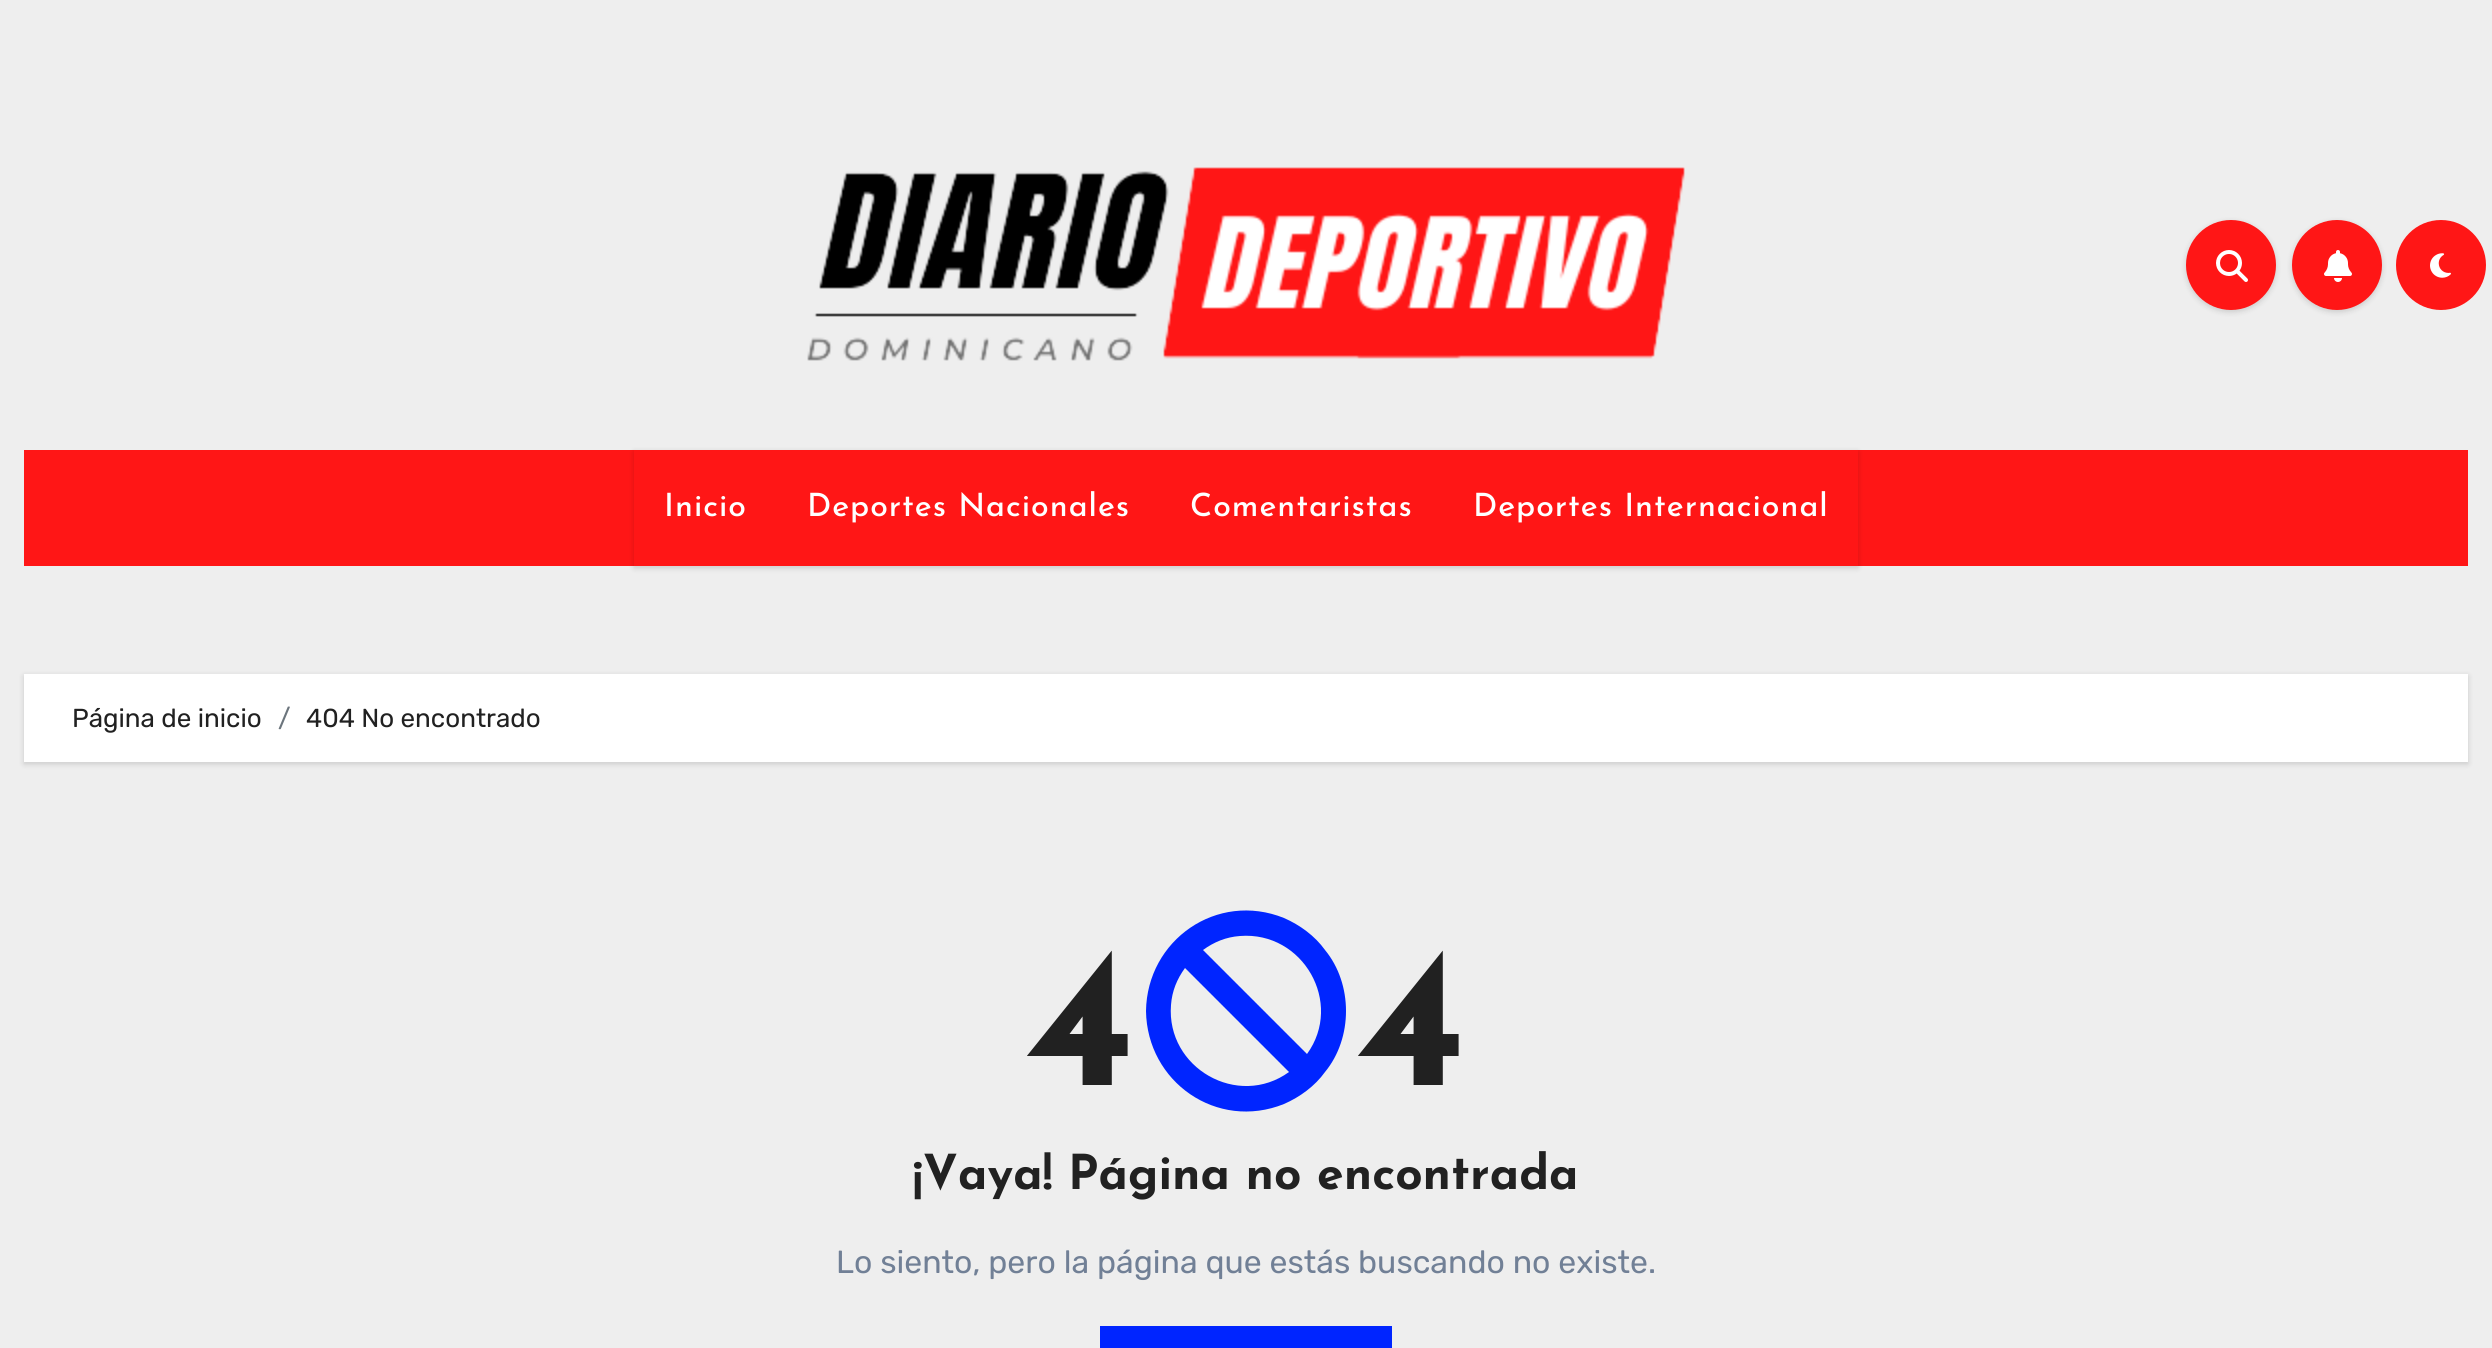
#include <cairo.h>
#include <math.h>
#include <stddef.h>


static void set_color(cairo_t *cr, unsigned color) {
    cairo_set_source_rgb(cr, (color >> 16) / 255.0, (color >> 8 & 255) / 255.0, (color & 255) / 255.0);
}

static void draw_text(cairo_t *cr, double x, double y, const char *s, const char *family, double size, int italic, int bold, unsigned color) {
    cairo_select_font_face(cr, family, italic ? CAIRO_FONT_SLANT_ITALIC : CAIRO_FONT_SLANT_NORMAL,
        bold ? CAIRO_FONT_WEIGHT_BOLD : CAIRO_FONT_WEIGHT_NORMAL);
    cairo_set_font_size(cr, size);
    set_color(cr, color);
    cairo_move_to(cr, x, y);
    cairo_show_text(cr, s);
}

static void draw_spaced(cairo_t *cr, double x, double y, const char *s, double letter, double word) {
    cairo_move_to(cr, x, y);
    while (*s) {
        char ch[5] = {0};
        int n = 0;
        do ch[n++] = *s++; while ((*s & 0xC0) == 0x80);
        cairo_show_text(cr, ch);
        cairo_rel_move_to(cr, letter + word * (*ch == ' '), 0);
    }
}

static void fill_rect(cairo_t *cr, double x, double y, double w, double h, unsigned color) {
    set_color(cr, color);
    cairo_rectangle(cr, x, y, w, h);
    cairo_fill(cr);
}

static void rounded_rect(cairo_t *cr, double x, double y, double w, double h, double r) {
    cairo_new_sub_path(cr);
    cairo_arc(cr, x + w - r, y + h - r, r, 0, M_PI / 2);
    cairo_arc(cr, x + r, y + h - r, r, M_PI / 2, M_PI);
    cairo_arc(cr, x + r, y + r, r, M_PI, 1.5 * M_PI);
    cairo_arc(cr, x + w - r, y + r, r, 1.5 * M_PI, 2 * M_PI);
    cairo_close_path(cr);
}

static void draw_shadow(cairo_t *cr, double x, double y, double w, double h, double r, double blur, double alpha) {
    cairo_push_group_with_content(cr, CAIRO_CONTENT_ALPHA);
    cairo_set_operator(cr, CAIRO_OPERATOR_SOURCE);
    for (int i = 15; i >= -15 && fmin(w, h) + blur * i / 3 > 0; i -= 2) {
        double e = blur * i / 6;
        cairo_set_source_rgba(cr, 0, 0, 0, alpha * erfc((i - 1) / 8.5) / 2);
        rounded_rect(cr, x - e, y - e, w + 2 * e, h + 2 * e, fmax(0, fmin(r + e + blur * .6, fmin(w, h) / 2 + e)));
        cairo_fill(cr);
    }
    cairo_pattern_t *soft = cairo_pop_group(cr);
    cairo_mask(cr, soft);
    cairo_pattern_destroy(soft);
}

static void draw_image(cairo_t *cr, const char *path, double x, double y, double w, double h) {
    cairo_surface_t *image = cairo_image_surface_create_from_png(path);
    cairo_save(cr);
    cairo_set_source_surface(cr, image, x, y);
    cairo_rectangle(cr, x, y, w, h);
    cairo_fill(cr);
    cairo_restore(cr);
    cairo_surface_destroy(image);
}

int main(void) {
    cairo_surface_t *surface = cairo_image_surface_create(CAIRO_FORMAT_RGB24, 2492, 1348);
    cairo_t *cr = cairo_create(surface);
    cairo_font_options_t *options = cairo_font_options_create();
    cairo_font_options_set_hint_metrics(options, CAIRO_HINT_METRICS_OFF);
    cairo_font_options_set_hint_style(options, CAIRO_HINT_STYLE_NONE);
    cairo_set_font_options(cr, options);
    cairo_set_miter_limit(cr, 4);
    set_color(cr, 0xEEEEEE);
    cairo_paint(cr);
    draw_image(cr, "assets/img1.png", 807, 167, 878, 194);
    set_color(cr, 0x000000);
    draw_shadow(cr, 2186, 222, 90, 90, 45, 3, 0.15);
    set_color(cr, 0xFF1616);
    cairo_arc(cr, 2231, 265, 45, 0, 2 * M_PI);
    cairo_fill(cr);
    draw_image(cr, "assets/img2.png", 2216, 250, 32, 32);
    set_color(cr, 0x000000);
    draw_shadow(cr, 2292, 222, 90, 90, 45, 3, 0.15);
    set_color(cr, 0xFF1616);
    cairo_arc(cr, 2337, 265, 45, 0, 2 * M_PI);
    cairo_fill(cr);
    draw_image(cr, "assets/img3.png", 2324, 250, 28, 32);
    cairo_arc(cr, 2441, 265, 45, 0, 2 * M_PI);
    cairo_fill(cr);
    draw_image(cr, "assets/img4.png", 2430, 253, 21, 25);
    fill_rect(cr, 24, 450, 2444, 116, 0xFF1616);
    cairo_save(cr);
    cairo_set_fill_rule(cr, CAIRO_FILL_RULE_EVEN_ODD);
    cairo_new_path(cr);
    cairo_move_to(cr, 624, 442);
    cairo_line_to(cr, 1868, 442);
    cairo_line_to(cr, 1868, 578);
    cairo_line_to(cr, 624, 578);
    cairo_close_path(cr);
    cairo_move_to(cr, 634, 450);
    cairo_line_to(cr, 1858, 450);
    cairo_line_to(cr, 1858, 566);
    cairo_line_to(cr, 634, 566);
    cairo_close_path(cr);
    cairo_clip(cr);
    set_color(cr, 0x000000);
    draw_shadow(cr, 634, 452, 1224, 116, 0, 3, 0.15);
    cairo_restore(cr);
    cairo_select_font_face(cr, "Josefin Sans Medium", CAIRO_FONT_SLANT_NORMAL, CAIRO_FONT_WEIGHT_NORMAL);
    cairo_set_font_size(cr, 32);
    set_color(cr, 0xFFFFFF);
    draw_spaced(cr, 664, 516, "Inicio", 1, 0);
    draw_spaced(cr, 807, 516, "Deportes Nacionales", 1, 0);
    draw_spaced(cr, 1190, 516, "Comentaristas", 1, 0);
    draw_spaced(cr, 1473, 516, "Deportes Internacional", 1, 0);
    set_color(cr, 0x000000);
    draw_shadow(cr, 24, 676, 2444, 88, 0, 3, 0.15);
    fill_rect(cr, 24, 674, 2444, 88, 0xFFFFFF);
    draw_text(cr, 72, 727, "Página de inicio", "Rubik Light", 26, 0, 0, 0x212121);
    draw_text(cr, 278, 727, "/", "Rubik Light", 26, 0, 0, 0x6C757D);
    draw_text(cr, 306, 727, "404 No encontrado", "Rubik Light", 26, 0, 0, 0x212121);
    draw_text(cr, 1025, 1085, "4", "Josefin Sans", 200, 0, 1, 0x212121);
    set_color(cr, 0x0025FF);
    cairo_new_path(cr);
    cairo_move_to(cr, 1289, 1072);
    cairo_line_to(cr, 1185, 968);
    cairo_curve_to(cr, 1177, 979, 1172, 991, 1171, 1005);
    cairo_curve_to(cr, 1166, 1068, 1238, 1109, 1289, 1072);
    cairo_close_path(cr);
    cairo_move_to(cr, 1307, 1054);
    cairo_curve_to(cr, 1344, 1003, 1303, 931, 1240, 936);
    cairo_curve_to(cr, 1226, 937, 1214, 942, 1203, 950);
    cairo_close_path(cr);
    cairo_move_to(cr, 1146, 1011);
    cairo_curve_to(cr, 1147, 940, 1217, 891, 1284, 918);
    cairo_curve_to(cr, 1300, 925, 1315, 936, 1325, 950);
    cairo_curve_to(cr, 1339, 967, 1346, 989, 1346, 1011);
    cairo_curve_to(cr, 1346, 1033, 1339, 1055, 1325, 1072);
    cairo_curve_to(cr, 1315, 1086, 1300, 1097, 1284, 1104);
    cairo_curve_to(cr, 1217, 1131, 1147, 1082, 1146, 1011);
    cairo_close_path(cr);
    cairo_fill(cr);
    draw_text(cr, 1356, 1085, "4", "Josefin Sans", 200, 0, 1, 0x212121);
    draw_text(cr, 913, 1189, "¡Vaya! Página no encontrada", "Josefin Sans", 48, 0, 1, 0x212121);
    draw_text(cr, 836, 1273, "Lo siento, pero la página que estás buscando no existe.", "Rubik Light", 32, 0, 0, 0x718096);
    fill_rect(cr, 1100, 1326, 292, 22, 0x0025FF);
    cairo_surface_write_to_png(surface, "output.png");
    cairo_font_options_destroy(options);
    cairo_destroy(cr);
    cairo_surface_destroy(surface);
    return 0;
}
